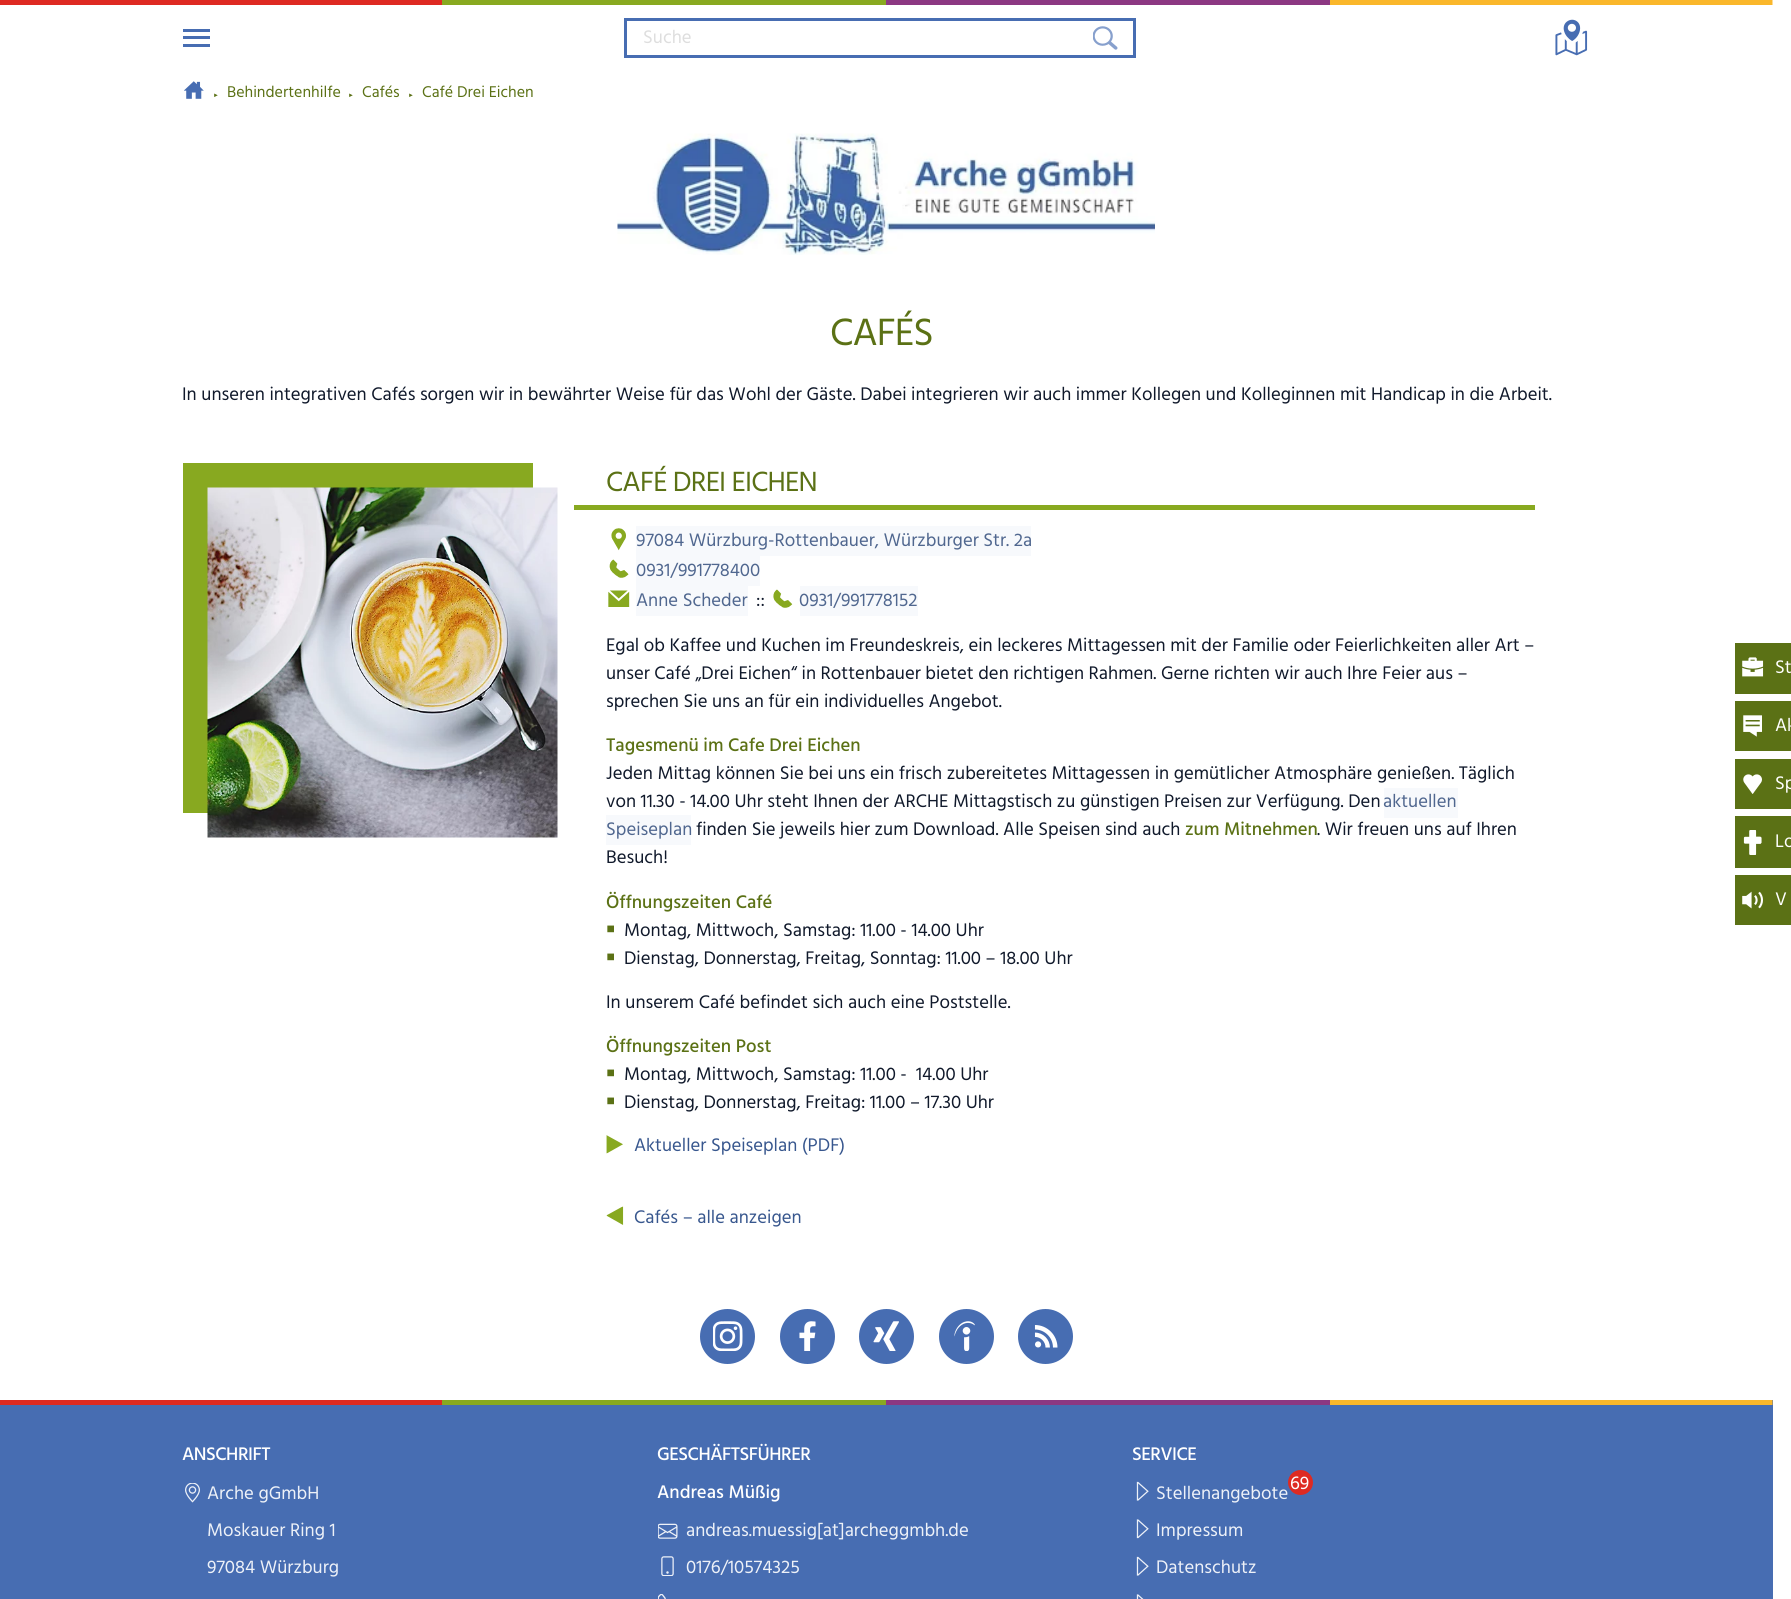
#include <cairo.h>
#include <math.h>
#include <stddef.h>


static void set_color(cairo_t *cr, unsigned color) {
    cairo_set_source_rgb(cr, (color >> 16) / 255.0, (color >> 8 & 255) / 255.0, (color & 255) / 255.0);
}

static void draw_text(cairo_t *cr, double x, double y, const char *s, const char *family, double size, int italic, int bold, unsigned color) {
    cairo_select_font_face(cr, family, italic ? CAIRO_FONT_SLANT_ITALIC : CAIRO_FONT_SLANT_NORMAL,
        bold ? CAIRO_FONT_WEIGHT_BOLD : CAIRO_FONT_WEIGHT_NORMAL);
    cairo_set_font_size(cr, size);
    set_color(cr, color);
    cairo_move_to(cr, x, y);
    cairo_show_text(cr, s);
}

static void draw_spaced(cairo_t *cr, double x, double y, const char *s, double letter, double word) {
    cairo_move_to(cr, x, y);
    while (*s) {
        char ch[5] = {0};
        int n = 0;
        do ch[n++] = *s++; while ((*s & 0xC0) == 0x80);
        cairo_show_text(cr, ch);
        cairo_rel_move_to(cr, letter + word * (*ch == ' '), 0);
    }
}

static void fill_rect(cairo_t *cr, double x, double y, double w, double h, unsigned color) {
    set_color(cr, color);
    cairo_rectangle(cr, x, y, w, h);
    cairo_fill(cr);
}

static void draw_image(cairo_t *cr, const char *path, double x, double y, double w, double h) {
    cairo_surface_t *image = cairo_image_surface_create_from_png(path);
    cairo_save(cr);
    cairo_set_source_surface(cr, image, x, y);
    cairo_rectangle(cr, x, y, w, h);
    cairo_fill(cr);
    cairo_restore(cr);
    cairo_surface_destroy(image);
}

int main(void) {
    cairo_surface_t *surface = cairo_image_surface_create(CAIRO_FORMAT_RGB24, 1791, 1599);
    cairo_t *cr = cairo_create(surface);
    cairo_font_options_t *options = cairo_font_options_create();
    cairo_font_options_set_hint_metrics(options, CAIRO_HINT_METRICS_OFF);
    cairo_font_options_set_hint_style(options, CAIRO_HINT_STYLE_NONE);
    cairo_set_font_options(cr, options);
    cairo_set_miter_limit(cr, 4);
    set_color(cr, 0xFFFFFF);
    cairo_paint(cr);
    draw_image(cr, "assets/img1.png", 0, 0, 1773, 5);
    fill_rect(cr, 183, 36, 27, 3, 0x476DB2);
    fill_rect(cr, 183, 29, 27, 3, 0x476DB2);
    fill_rect(cr, 183, 44, 27, 3, 0x476DB2);
    cairo_rectangle(cr, 625.5, 19.5, 509, 37);
    cairo_set_line_width(cr, 3);
    cairo_stroke(cr);
    draw_text(cr, 643, 43, "Suche", "Hind", 18.7, 0, 0, 0xDEDEDE);
    draw_image(cr, "assets/img2.png", 1093, 26, 25, 24);
    draw_image(cr, "assets/img3.png", 1555, 19, 33, 37);
    draw_image(cr, "assets/img4.png", 184, 81, 20, 18);
    draw_text(cr, 213, 97, "►", "Liberation Sans", 6, 0, 0, 0x5B7115);
    draw_text(cr, 227, 97, "Behindertenhilfe", "Hind", 16, 0, 0, 0x5B7115);
    draw_text(cr, 348, 97, "►", "Liberation Sans", 6, 0, 0, 0x5B7115);
    draw_text(cr, 362, 97, "Cafés", "Hind", 16, 0, 0, 0x5B7115);
    draw_text(cr, 408, 97, "►", "Liberation Sans", 6, 0, 0, 0x5B7115);
    draw_text(cr, 422, 97, "Café Drei Eichen", "Hind", 16, 0, 0, 0x5B7115);
    draw_image(cr, "assets/img5.png", 617, 133, 538, 122);
    cairo_set_font_size(cr, 39);
    draw_spaced(cr, 830, 345, "CAFÉS", -1, 0);
    draw_text(cr, 182, 400, "In unseren integrativen Cafés sorgen wir in bewährter Weise für das Wohl der Gäste. Dabei integrieren wir auch immer Kollegen und Kolleginnen mit Handicap in die Arbeit.", "Hind", 18.7, 0, 0, 0x10192B);
    set_color(cr, 0x88A920);
    cairo_new_path(cr);
    cairo_move_to(cr, 183, 463);
    cairo_line_to(cr, 183, 813);
    cairo_line_to(cr, 208, 813);
    cairo_line_to(cr, 208, 488);
    cairo_line_to(cr, 533, 488);
    cairo_line_to(cr, 533, 463);
    cairo_close_path(cr);
    cairo_fill(cr);
    draw_image(cr, "assets/img6.png", 207, 487, 351, 351);
    fill_rect(cr, 574, 505, 961, 5, 0x88A920);
    cairo_set_font_size(cr, 28.5);
    set_color(cr, 0x5B7115);
    draw_spaced(cr, 606, 491, "CAFÉ DREI EICHEN", -0.8, 0);
    draw_image(cr, "assets/img7.png", 611, 528, 15, 23);
    fill_rect(cr, 636, 526, 395, 30, 0xF7F9FC);
    draw_text(cr, 636, 546, "97084 Würzburg-Rottenbauer, Würzburger Str. 2a", "Hind", 18.7, 0, 0, 0x50678F);
    draw_image(cr, "assets/img8.png", 609, 559, 20, 19);
    fill_rect(cr, 636, 556, 124, 30, 0xF7F9FC);
    draw_text(cr, 636, 576, "0931/991778400", "Hind", 18.7, 0, 0, 0x50678F);
    draw_image(cr, "assets/img9.png", 608, 590, 22, 17);
    fill_rect(cr, 636, 586, 112, 30, 0xF7F9FC);
    draw_text(cr, 636, 606, "Anne Scheder", "Hind", 18.7, 0, 0, 0x50678F);
    draw_text(cr, 756, 606, "::", "Hind", 18.7, 0, 0, 0x10192B);
    draw_image(cr, "assets/img10.png", 773, 589, 20, 19);
    fill_rect(cr, 800, 586, 118, 30, 0xF7F9FC);
    draw_text(cr, 799, 606, "0931/991778152", "Hind", 18.7, 0, 0, 0x50678F);
    draw_text(cr, 606, 651, "Egal ob Kaffee und Kuchen im Freundeskreis, ein leckeres Mittagessen mit der Familie oder Feierlichkeiten aller Art –", "Hind", 18.7, 0, 0, 0x10192B);
    draw_text(cr, 606, 679, "unser Café „Drei Eichen“ in Rottenbauer bietet den richtigen Rahmen. Gerne richten wir auch Ihre Feier aus –", "Hind", 18.7, 0, 0, 0x10192B);
    draw_text(cr, 606, 707, "sprechen Sie uns an für ein individuelles Angebot.", "Hind", 18.7, 0, 0, 0x10192B);
    draw_text(cr, 606, 751, "Tagesmenü im Cafe Drei Eichen", "Hind Medium", 18.7, 0, 0, 0x5B7115);
    draw_text(cr, 606, 779, "Jeden Mittag können Sie bei uns ein frisch zubereitetes Mittagessen in gemütlicher Atmosphäre genießen. Täglich", "Hind", 18.7, 0, 0, 0x10192B);
    draw_text(cr, 606, 807, "von 11.30 - 14.00 Uhr steht Ihnen der ARCHE Mittagstisch zu günstigen Preisen zur Verfügung. Den", "Hind", 18.7, 0, 0, 0x10192B);
    fill_rect(cr, 1384, 788, 74, 30, 0xF7F9FC);
    draw_text(cr, 1383, 807, "aktuellen", "Hind", 18.7, 0, 0, 0x50678F);
    fill_rect(cr, 606, 815, 85, 30, 0xF7F9FC);
    draw_text(cr, 606, 835, "Speiseplan", "Hind", 18.7, 0, 0, 0x50678F);
    draw_text(cr, 696, 835, "finden Sie jeweils hier zum Download. Alle Speisen sind auch", "Hind", 18.7, 0, 0, 0x10192B);
    draw_text(cr, 1185, 835, "zum Mitnehmen", "Hind Medium", 18.7, 0, 0, 0x5B7115);
    draw_text(cr, 1317, 835, ". Wir freuen uns auf Ihren", "Hind", 18.7, 0, 0, 0x10192B);
    draw_text(cr, 606, 863, "Besuch!", "Hind", 18.7, 0, 0, 0x10192B);
    draw_text(cr, 606, 908, "Öffnungszeiten Café", "Hind Medium", 18.7, 0, 0, 0x5B7115);
    draw_text(cr, 606, 936, "￭", "Chiron Hei HK Black", 18.7, 0, 0, 0x5B7115);
    draw_text(cr, 624, 936, "Montag, Mittwoch, Samstag: 11.00 - 14.00 Uhr", "Hind", 18.7, 0, 0, 0x10192B);
    draw_text(cr, 606, 964, "￭", "Chiron Hei HK Black", 18.7, 0, 0, 0x5B7115);
    draw_text(cr, 624, 964, "Dienstag, Donnerstag, Freitag, Sonntag: 11.00 – 18.00 Uhr", "Hind", 18.7, 0, 0, 0x10192B);
    draw_text(cr, 606, 1008, "In unserem Café befindet sich auch eine Poststelle.", "Hind", 18.7, 0, 0, 0x10192B);
    draw_text(cr, 606, 1052, "Öffnungszeiten Post", "Hind Medium", 18.7, 0, 0, 0x5B7115);
    draw_text(cr, 606, 1080, "￭", "Chiron Hei HK Black", 18.7, 0, 0, 0x5B7115);
    draw_text(cr, 624, 1080, "Montag, Mittwoch, Samstag: 11.00 -  14.00 Uhr", "Hind", 18.7, 0, 0, 0x10192B);
    draw_text(cr, 606, 1108, "￭", "Chiron Hei HK Black", 18.7, 0, 0, 0x5B7115);
    draw_text(cr, 624, 1108, "Dienstag, Donnerstag, Freitag: 11.00 – 17.30 Uhr", "Hind", 18.7, 0, 0, 0x10192B);
    draw_image(cr, "assets/img11.png", 606, 1135, 17, 19);
    draw_text(cr, 634, 1151, "Aktueller Speiseplan (PDF)", "Hind", 18.7, 0, 0, 0x38578E);
    draw_image(cr, "assets/img12.png", 606, 1206, 18, 19);
    draw_text(cr, 634, 1223, "Cafés – alle anzeigen", "Hind", 18.7, 0, 0, 0x38578E);
    set_color(cr, 0x476DB2);
    cairo_new_path(cr);
    cairo_arc(cr, 727.5, 1336.5, 27.5, 0, 2 * M_PI);
    cairo_fill(cr);
    draw_image(cr, "assets/img13.png", 713, 1321, 30, 30);
    cairo_arc(cr, 807.5, 1336.5, 27.5, 0, 2 * M_PI);
    cairo_fill(cr);
    draw_image(cr, "assets/img14.png", 799, 1321, 17, 30);
    cairo_arc(cr, 886.5, 1336.5, 27.5, 0, 2 * M_PI);
    cairo_fill(cr);
    draw_image(cr, "assets/img15.png", 873, 1321, 26, 30);
    cairo_arc(cr, 966.5, 1336.5, 27.5, 0, 2 * M_PI);
    cairo_fill(cr);
    draw_image(cr, "assets/img16.png", 954, 1321, 21, 30);
    cairo_arc(cr, 1045.5, 1336.5, 27.5, 0, 2 * M_PI);
    cairo_fill(cr);
    draw_image(cr, "assets/img17.png", 1034, 1325, 24, 23);
    fill_rect(cr, 1735, 643, 56, 51, 0x5B7115);
    draw_image(cr, "assets/img18.png", 1742, 657, 22, 20);
    draw_text(cr, 1775, 673, "St", "Hind", 18.7, 0, 0, 0xFFFFFF);
    fill_rect(cr, 1735, 701, 56, 50, 0x5B7115);
    draw_image(cr, "assets/img19.png", 1743, 715, 19, 22);
    draw_text(cr, 1775, 731, "Ak", "Hind", 18.7, 0, 0, 0xFFFFFF);
    fill_rect(cr, 1735, 759, 56, 50, 0x5B7115);
    draw_image(cr, "assets/img20.png", 1743, 774, 19, 20);
    draw_text(cr, 1775, 789, "Sp", "Hind", 18.7, 0, 0, 0xFFFFFF);
    fill_rect(cr, 1735, 816, 56, 52, 0x5B7115);
    draw_image(cr, "assets/img21.png", 1743, 830, 19, 25);
    draw_text(cr, 1775, 847, "Lo", "Hind", 18.7, 0, 0, 0xFFFFFF);
    fill_rect(cr, 1735, 875, 56, 50, 0x5B7115);
    draw_image(cr, "assets/img22.png", 1742, 891, 21, 18);
    draw_text(cr, 1775, 905, "V", "Hind", 18.7, 0, 0, 0xFFFFFF);
    fill_rect(cr, 0, 1400, 1773, 199, 0x476DB2);
    draw_image(cr, "assets/img23.png", 0, 1400, 1773, 5);
    cairo_select_font_face(cr, "Hind Medium", CAIRO_FONT_SLANT_NORMAL, CAIRO_FONT_WEIGHT_NORMAL);
    set_color(cr, 0xFFFFFF);
    draw_spaced(cr, 182, 1460, "ANSCHRIFT", -0.5, 0);
    draw_image(cr, "assets/img24.png", 185, 1483, 15, 20);
    draw_text(cr, 207, 1499, "Arche gGmbH", "Hind", 18.7, 0, 0, 0xEDF1F8);
    draw_text(cr, 207, 1536, "Moskauer Ring 1", "Hind", 18.7, 0, 0, 0xEDF1F8);
    draw_text(cr, 207, 1573, "97084 Würzburg", "Hind", 18.7, 0, 0, 0xEDF1F8);
    cairo_select_font_face(cr, "Hind Medium", CAIRO_FONT_SLANT_NORMAL, CAIRO_FONT_WEIGHT_NORMAL);
    set_color(cr, 0xFFFFFF);
    draw_spaced(cr, 657, 1460, "GESCHÄFTSFÜHRER", -0.5, 0);
    draw_text(cr, 657, 1498, "Andreas Müßig", "Hind Medium", 18.7, 0, 0, 0xFFFFFF);
    draw_image(cr, "assets/img25.png", 658, 1523, 20, 16);
    draw_text(cr, 686, 1536, "andreas.muessig[at]archeggmbh.de", "Hind", 18.7, 0, 0, 0xEDF1F8);
    draw_image(cr, "assets/img26.png", 661, 1556, 13, 20);
    draw_text(cr, 686, 1573, "0176/10574325", "Hind", 18.7, 0, 0, 0xEDF1F8);
    draw_image(cr, "assets/img27.png", 658, 1594, 8, 5);
    cairo_select_font_face(cr, "Hind Medium", CAIRO_FONT_SLANT_NORMAL, CAIRO_FONT_WEIGHT_NORMAL);
    set_color(cr, 0xFFFFFF);
    draw_spaced(cr, 1132, 1460, "SERVICE", -0.5, 0);
    draw_image(cr, "assets/img28.png", 1136, 1481, 13, 20);
    set_color(cr, 0xDE2A22);
    cairo_arc(cr, 1300.5, 1482.5, 12.5, 0, 2 * M_PI);
    cairo_fill(cr);
    draw_text(cr, 1290, 1489, "69", "Hind", 18.7, 0, 0, 0xFFFFFF);
    draw_text(cr, 1156, 1499, "Stellenangebote", "Hind", 18.7, 0, 0, 0xEDF1F8);
    draw_image(cr, "assets/img29.png", 1136, 1519, 13, 20);
    draw_text(cr, 1156, 1536, "Impressum", "Hind", 18.7, 0, 0, 0xEDF1F8);
    draw_image(cr, "assets/img28.png", 1136, 1556, 13, 20);
    draw_text(cr, 1156, 1573, "Datenschutz", "Hind", 18.7, 0, 0, 0xEDF1F8);
    draw_image(cr, "assets/img30.png", 1136, 1594, 8, 5);
    cairo_surface_write_to_png(surface, "output.png");
    cairo_font_options_destroy(options);
    cairo_destroy(cr);
    cairo_surface_destroy(surface);
    return 0;
}
